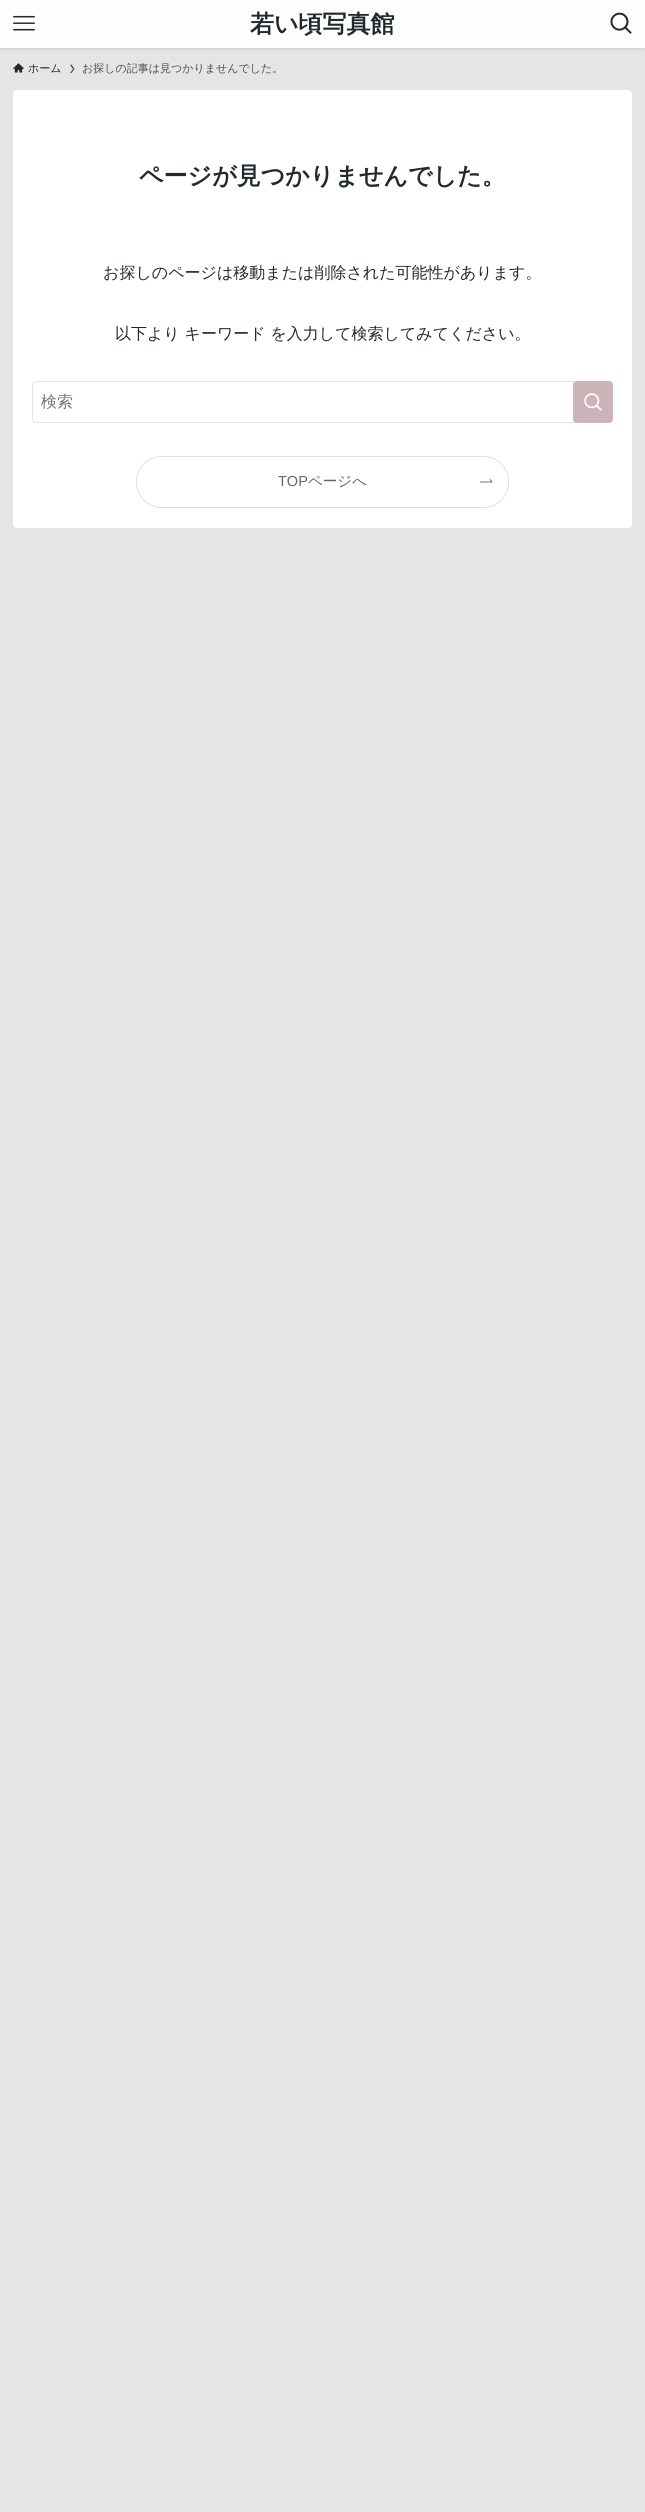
#include <cairo.h>
#include <math.h>
#include <stddef.h>


static void set_color(cairo_t *cr, unsigned color) {
    cairo_set_source_rgb(cr, (color >> 16) / 255.0, (color >> 8 & 255) / 255.0, (color & 255) / 255.0);
}

static void draw_text(cairo_t *cr, double x, double y, const char *s, const char *family, double size, int italic, int bold, unsigned color) {
    cairo_select_font_face(cr, family, italic ? CAIRO_FONT_SLANT_ITALIC : CAIRO_FONT_SLANT_NORMAL,
        bold ? CAIRO_FONT_WEIGHT_BOLD : CAIRO_FONT_WEIGHT_NORMAL);
    cairo_set_font_size(cr, size);
    set_color(cr, color);
    cairo_move_to(cr, x, y);
    cairo_show_text(cr, s);
}

static void fill_rect(cairo_t *cr, double x, double y, double w, double h, unsigned color) {
    set_color(cr, color);
    cairo_rectangle(cr, x, y, w, h);
    cairo_fill(cr);
}

static void rounded_rect(cairo_t *cr, double x, double y, double w, double h, double r) {
    cairo_new_sub_path(cr);
    cairo_arc(cr, x + w - r, y + h - r, r, 0, M_PI / 2);
    cairo_arc(cr, x + r, y + h - r, r, M_PI / 2, M_PI);
    cairo_arc(cr, x + r, y + r, r, M_PI, 1.5 * M_PI);
    cairo_arc(cr, x + w - r, y + r, r, 1.5 * M_PI, 2 * M_PI);
    cairo_close_path(cr);
}

static void draw_shadow(cairo_t *cr, double x, double y, double w, double h, double r, double blur, double alpha) {
    cairo_push_group_with_content(cr, CAIRO_CONTENT_ALPHA);
    cairo_set_operator(cr, CAIRO_OPERATOR_SOURCE);
    for (int i = 15; i >= -15 && fmin(w, h) + blur * i / 3 > 0; i -= 2) {
        double e = blur * i / 6;
        cairo_set_source_rgba(cr, 0, 0, 0, alpha * erfc((i - 1) / 8.5) / 2);
        rounded_rect(cr, x - e, y - e, w + 2 * e, h + 2 * e, fmax(0, fmin(r + e + blur * .6, fmin(w, h) / 2 + e)));
        cairo_fill(cr);
    }
    cairo_pattern_t *soft = cairo_pop_group(cr);
    cairo_mask(cr, soft);
    cairo_pattern_destroy(soft);
}

static void draw_image(cairo_t *cr, const char *path, double x, double y, double w, double h) {
    cairo_surface_t *image = cairo_image_surface_create_from_png(path);
    cairo_save(cr);
    cairo_set_source_surface(cr, image, x, y);
    cairo_rectangle(cr, x, y, w, h);
    cairo_fill(cr);
    cairo_restore(cr);
    cairo_surface_destroy(image);
}

int main(void) {
    cairo_surface_t *surface = cairo_image_surface_create(CAIRO_FORMAT_RGB24, 645, 2512);
    cairo_t *cr = cairo_create(surface);
    cairo_font_options_t *options = cairo_font_options_create();
    cairo_font_options_set_hint_metrics(options, CAIRO_HINT_METRICS_OFF);
    cairo_font_options_set_hint_style(options, CAIRO_HINT_STYLE_NONE);
    cairo_set_font_options(cr, options);
    cairo_set_miter_limit(cr, 4);
    set_color(cr, 0xE6E5E4);
    cairo_paint(cr);
    set_color(cr, 0x000000);
    draw_shadow(cr, 0, 1, 645, 48, 0, 2, 0.12);
    fill_rect(cr, 0, 0, 645, 48, 0xFDFDFD);
    draw_image(cr, "assets/img1.png", 13, 15, 22, 16);
    draw_text(cr, 250, 32, "若い頃写真館", "WenQuanYi Zen Hei", 24, 0, 1, 0x22292C);
    draw_image(cr, "assets/img2.png", 610, 12, 22, 22);
    draw_image(cr, "assets/img3.png", 13, 63, 11, 10);
    draw_text(cr, 28, 72, "ホーム", "WenQuanYi Zen Hei Medium", 11, 0, 0, 0x22292C);
    set_color(cr, 0x494F51);
    cairo_new_path(cr);
    cairo_move_to(cr, 71.5, 64.5);
    cairo_line_to(cr, 70, 65);
    cairo_line_to(cr, 73, 69);
    cairo_line_to(cr, 70, 73);
    cairo_line_to(cr, 71.5, 73);
    cairo_line_to(cr, 74.5, 69);
    cairo_close_path(cr);
    cairo_fill(cr);
    draw_text(cr, 82, 72, "お探しの記事は見つかりませんでした。", "WenQuanYi Zen Hei Medium", 11, 0, 0, 0x494F51);
    set_color(cr, 0xFFFFFF);
    rounded_rect(cr, 13, 90, 619, 438, 4);
    cairo_fill(cr);
    draw_text(cr, 139, 184, "ページが見つかりませんでした。", "WenQuanYi Zen Hei", 24, 0, 1, 0x22292C);
    draw_text(cr, 103, 278, "お探しのページは移動または削除された可能性があります。", "WenQuanYi Zen Hei Medium", 16, 0, 0, 0x22292C);
    draw_text(cr, 115, 339, "以下より キーワード を入力して検索してみてください。", "WenQuanYi Zen Hei Medium", 16, 0, 0, 0x22292C);
    rounded_rect(cr, 32.5, 381.5, 580, 41, 3.5);
    set_color(cr, 0xE3E3E3);
    cairo_set_line_width(cr, 1);
    cairo_stroke(cr);
    draw_text(cr, 41, 407, "検索", "WenQuanYi Zen Hei Medium", 16, 0, 0, 0x757575);
    set_color(cr, 0xCCB3B7);
    rounded_rect(cr, 573, 381, 40, 42, 4);
    cairo_fill(cr);
    rounded_rect(cr, 573.5, 381.5, 39, 41, 3.5);
    cairo_set_source_rgba(cr, 0.78, 0.78, 0.78, 0.5);
    cairo_stroke(cr);
    draw_image(cr, "assets/img4.png", 584, 393, 18, 18);
    rounded_rect(cr, 136.5, 456.5, 372, 51, 25.5);
    set_color(cr, 0xDCDCDC);
    cairo_stroke(cr);
    set_color(cr, 0xFFFFFF);
    rounded_rect(cr, 137, 457, 371, 50, 25);
    cairo_fill(cr);
    draw_text(cr, 278, 486, "TOP", "Liberation Sans", 14.5, 0, 0, 0x666666);
    draw_text(cr, 308, 486, "ページへ", "WenQuanYi Zen Hei Medium", 14.5, 0, 0, 0x666666);
    draw_image(cr, "assets/img5.png", 480, 479, 13, 4);
    cairo_surface_write_to_png(surface, "output.png");
    cairo_font_options_destroy(options);
    cairo_destroy(cr);
    cairo_surface_destroy(surface);
    return 0;
}
